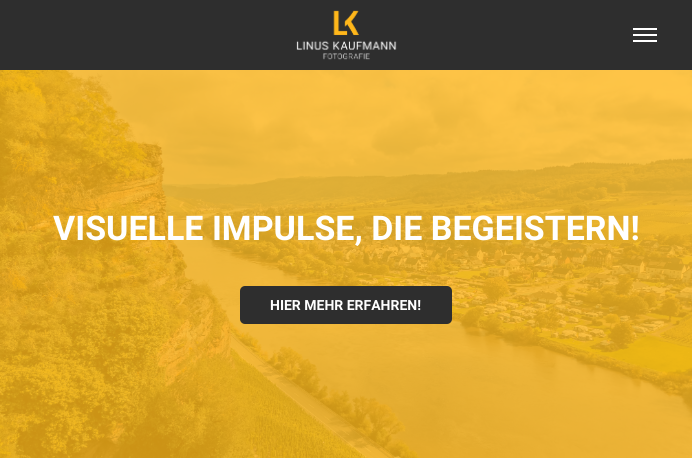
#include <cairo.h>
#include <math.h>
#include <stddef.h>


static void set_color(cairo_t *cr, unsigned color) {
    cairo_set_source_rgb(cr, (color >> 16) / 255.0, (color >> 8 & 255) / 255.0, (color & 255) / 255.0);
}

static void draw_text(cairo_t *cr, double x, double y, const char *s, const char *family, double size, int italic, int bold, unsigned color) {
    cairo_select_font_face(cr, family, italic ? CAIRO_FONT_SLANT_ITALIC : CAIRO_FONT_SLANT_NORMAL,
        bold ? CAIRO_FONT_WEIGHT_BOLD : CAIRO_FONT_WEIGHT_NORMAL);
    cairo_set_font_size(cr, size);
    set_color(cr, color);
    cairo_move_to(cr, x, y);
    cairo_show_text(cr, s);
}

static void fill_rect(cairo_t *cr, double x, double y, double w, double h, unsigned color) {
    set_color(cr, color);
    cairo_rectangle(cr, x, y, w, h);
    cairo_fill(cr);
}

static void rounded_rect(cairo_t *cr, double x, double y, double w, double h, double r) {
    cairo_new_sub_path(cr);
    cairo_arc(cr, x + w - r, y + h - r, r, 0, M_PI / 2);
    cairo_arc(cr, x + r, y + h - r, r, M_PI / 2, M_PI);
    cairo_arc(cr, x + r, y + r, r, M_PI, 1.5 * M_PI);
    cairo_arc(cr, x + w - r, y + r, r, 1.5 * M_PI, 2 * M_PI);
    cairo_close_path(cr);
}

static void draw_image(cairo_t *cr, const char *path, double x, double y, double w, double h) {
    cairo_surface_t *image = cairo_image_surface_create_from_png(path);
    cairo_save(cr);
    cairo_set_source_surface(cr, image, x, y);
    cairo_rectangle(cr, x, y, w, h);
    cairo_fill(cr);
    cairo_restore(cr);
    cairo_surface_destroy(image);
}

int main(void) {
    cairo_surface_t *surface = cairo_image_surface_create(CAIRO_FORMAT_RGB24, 692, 458);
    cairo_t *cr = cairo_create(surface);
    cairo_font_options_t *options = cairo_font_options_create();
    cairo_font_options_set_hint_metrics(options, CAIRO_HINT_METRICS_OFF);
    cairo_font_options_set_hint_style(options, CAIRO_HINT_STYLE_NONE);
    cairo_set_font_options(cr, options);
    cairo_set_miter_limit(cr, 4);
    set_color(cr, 0xFFFFFF);
    cairo_paint(cr);
    fill_rect(cr, 0, 0, 692, 70, 0x2E2E2E);
    draw_image(cr, "assets/img1.png", 296, 10, 101, 50);
    fill_rect(cr, 633, 28, 24, 2, 0xFFFFFF);
    fill_rect(cr, 633, 34, 24, 2, 0xFFFFFF);
    fill_rect(cr, 633, 40, 24, 2, 0xFFFFFF);
    draw_image(cr, "assets/img2.png", 0, 70, 692, 388);
    draw_text(cr, 53, 240, "VISUELLE IMPULSE, DIE BEGEISTERN!", "Roboto", 34, 0, 1, 0xFFFFFF);
    set_color(cr, 0x2E2E2E);
    rounded_rect(cr, 240, 286, 212, 38, 5);
    cairo_fill(cr);
    draw_text(cr, 270, 310, "HIER MEHR ERFAHREN!", "Roboto", 14, 0, 1, 0xFFFFFF);
    cairo_surface_write_to_png(surface, "output.png");
    cairo_font_options_destroy(options);
    cairo_destroy(cr);
    cairo_surface_destroy(surface);
    return 0;
}
